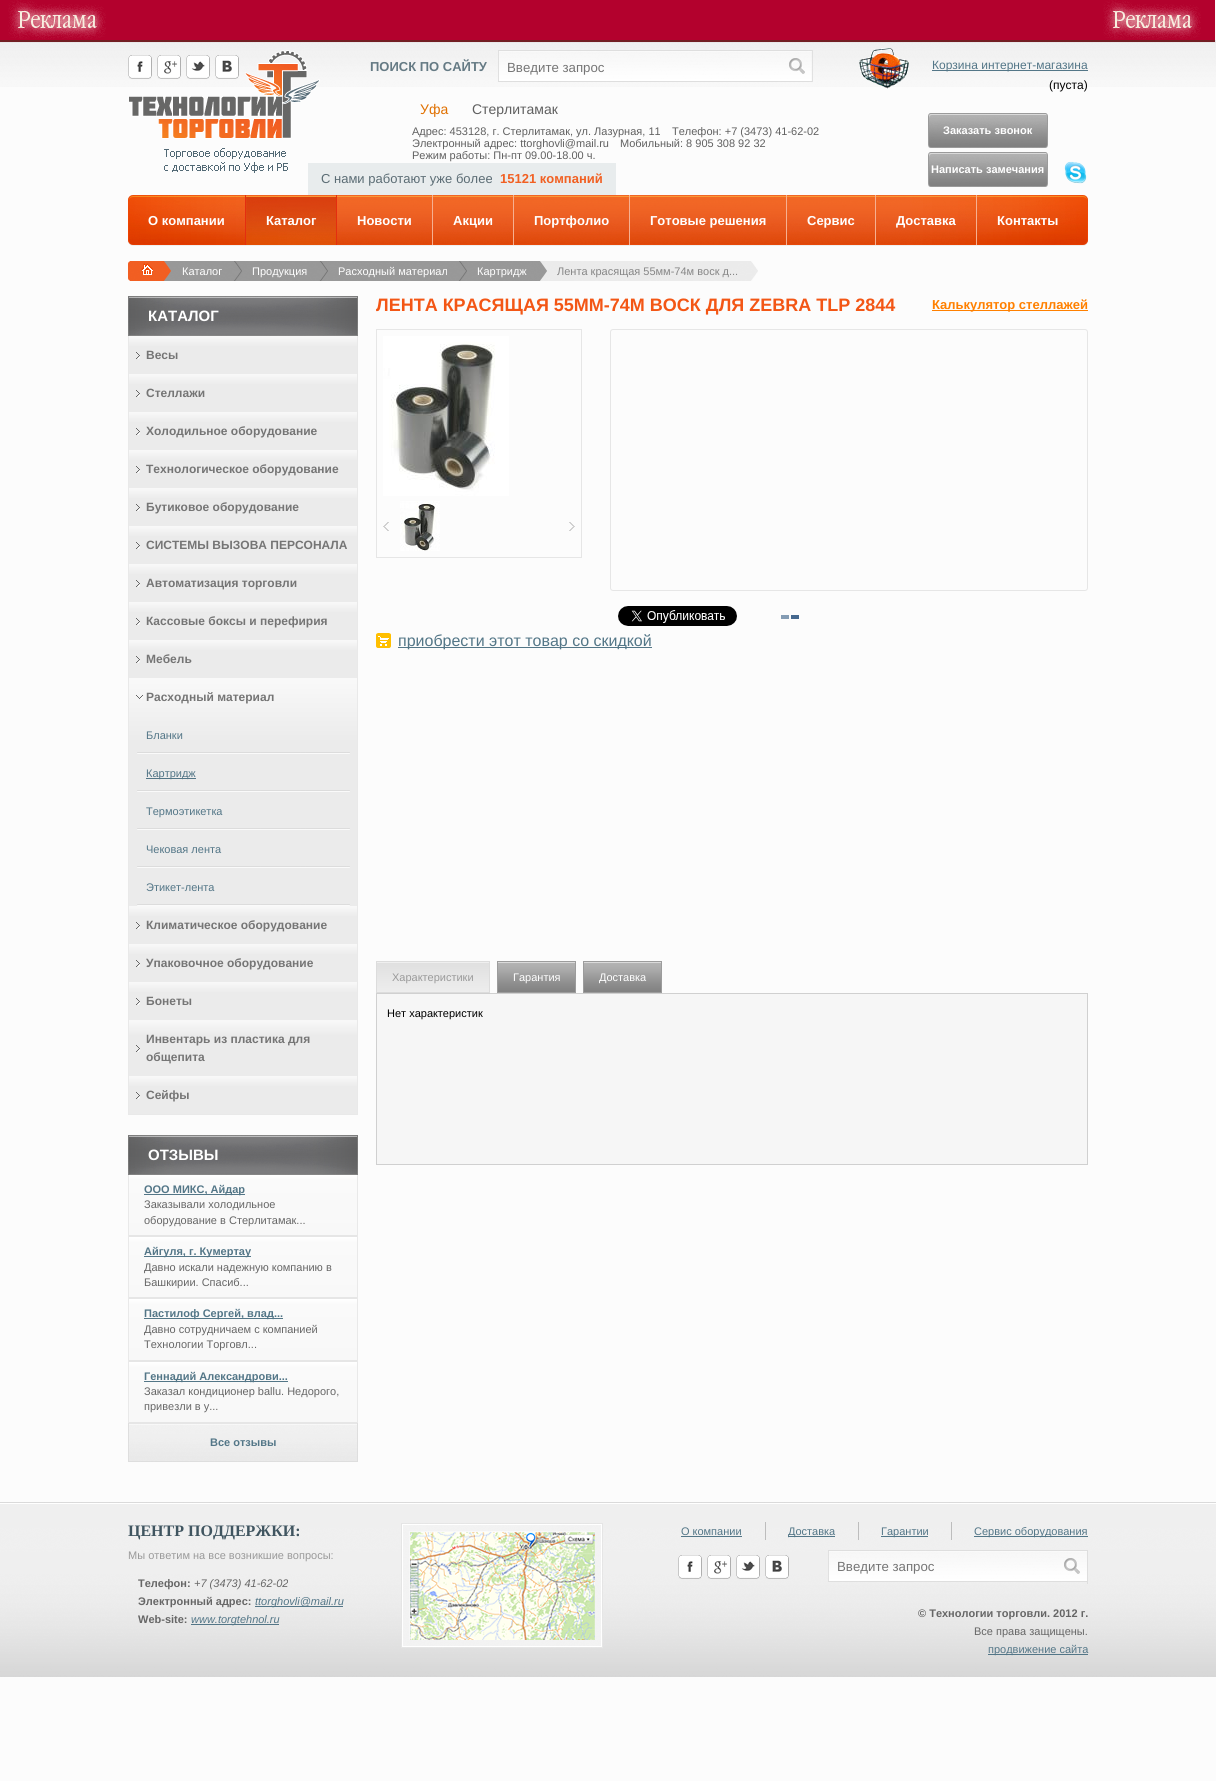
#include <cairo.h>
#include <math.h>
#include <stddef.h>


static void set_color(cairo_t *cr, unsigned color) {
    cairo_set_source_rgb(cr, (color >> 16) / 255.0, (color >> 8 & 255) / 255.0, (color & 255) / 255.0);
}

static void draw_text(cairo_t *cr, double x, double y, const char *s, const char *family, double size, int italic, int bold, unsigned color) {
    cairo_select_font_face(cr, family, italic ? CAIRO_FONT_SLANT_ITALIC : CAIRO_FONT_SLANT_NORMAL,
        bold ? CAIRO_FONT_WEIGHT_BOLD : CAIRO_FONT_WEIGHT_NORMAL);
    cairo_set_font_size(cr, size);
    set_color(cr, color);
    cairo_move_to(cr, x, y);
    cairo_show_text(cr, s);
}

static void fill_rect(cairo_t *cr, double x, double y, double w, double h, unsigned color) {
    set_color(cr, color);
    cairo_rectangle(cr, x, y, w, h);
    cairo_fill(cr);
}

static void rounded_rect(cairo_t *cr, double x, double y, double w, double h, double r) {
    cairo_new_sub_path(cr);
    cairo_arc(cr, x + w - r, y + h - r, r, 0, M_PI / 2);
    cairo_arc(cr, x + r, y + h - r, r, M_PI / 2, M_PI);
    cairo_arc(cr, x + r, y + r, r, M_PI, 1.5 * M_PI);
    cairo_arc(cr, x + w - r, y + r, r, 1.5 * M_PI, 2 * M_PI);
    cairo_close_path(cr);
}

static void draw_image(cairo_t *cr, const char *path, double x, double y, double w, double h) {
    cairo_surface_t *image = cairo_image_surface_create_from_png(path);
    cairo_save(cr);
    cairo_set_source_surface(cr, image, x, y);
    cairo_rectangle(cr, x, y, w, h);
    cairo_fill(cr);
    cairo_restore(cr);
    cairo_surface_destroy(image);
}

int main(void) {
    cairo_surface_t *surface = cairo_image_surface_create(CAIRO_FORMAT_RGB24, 1216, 1781);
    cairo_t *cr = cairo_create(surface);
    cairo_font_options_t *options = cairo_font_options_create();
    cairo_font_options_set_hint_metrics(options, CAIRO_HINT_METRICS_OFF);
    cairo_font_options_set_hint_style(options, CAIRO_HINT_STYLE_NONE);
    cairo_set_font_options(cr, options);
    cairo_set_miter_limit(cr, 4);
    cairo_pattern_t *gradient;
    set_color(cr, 0xFCFCFC);
    cairo_paint(cr);
    fill_rect(cr, 0, 0, 1215, 40, 0xB3012D);
    draw_image(cr, "assets/img1.png", 8, 0, 98, 39);
    draw_image(cr, "assets/img2.png", 0, 40, 1216, 47);
    fill_rect(cr, 0, 40, 1215, 2, 0x721D22);
    draw_image(cr, "assets/img1.png", 1103, 0, 98, 39);
    draw_image(cr, "assets/img3.png", 129, 50, 191, 123);
    draw_image(cr, "assets/img4.png", 128, 55, 24, 24);
    draw_image(cr, "assets/img5.png", 157, 55, 24, 24);
    draw_image(cr, "assets/img6.png", 186, 55, 24, 24);
    draw_image(cr, "assets/img7.png", 215, 55, 24, 24);
    draw_text(cr, 370, 71, "ПОИСК ПО САЙТУ", "Liberation Sans", 13, 0, 1, 0x657A84);
    draw_image(cr, "assets/img8.png", 498, 50, 315, 32);
    draw_text(cr, 507, 72, "Введите запрос", "Liberation Sans", 13.25, 0, 0, 0x757575);
    draw_image(cr, "assets/img9.png", 789, 58, 16, 16);
    draw_image(cr, "assets/img10.png", 859, 48, 50, 41);
    fill_rect(cr, 932, 70, 156, 1, 0x537687);
    draw_text(cr, 932, 69, "Корзина интернет-магазина", "Liberation Sans", 12, 0, 0, 0x537687);
    draw_text(cr, 1049, 89, "(пуста)", "Liberation Sans", 12, 0, 0, 0x000000);
    draw_text(cr, 420, 114, "Уфа", "Liberation Sans", 14, 0, 0, 0xE07000);
    draw_text(cr, 472, 114, "Стерлитамак", "Liberation Sans", 14, 0, 0, 0x606060);
    draw_text(cr, 412, 135, "Адрес: 453128, г. Стерлитамак, ул. Лазурная, 11", "Liberation Sans", 11, 0, 0, 0x606060);
    draw_text(cr, 672, 135, "Телефон: +7 (3473) 41-62-02", "Liberation Sans", 11, 0, 0, 0x606060);
    draw_text(cr, 412, 147, "Электронный адрес: ttorghovli@mail.ru", "Liberation Sans", 11, 0, 0, 0x606060);
    draw_text(cr, 620, 147, "Мобильный: 8 905 308 92 32", "Liberation Sans", 11, 0, 0, 0x606060);
    draw_text(cr, 412, 159, "Режим работы: Пн-пт 09.00-18.00 ч.", "Liberation Sans", 11, 0, 0, 0x606060);
    draw_image(cr, "assets/img11.png", 928, 113, 120, 35);
    draw_text(cr, 943, 134, "Заказать звонок", "Liberation Sans", 11, 0, 1, 0xFFFFFF);
    draw_image(cr, "assets/img11.png", 928, 152, 120, 35);
    draw_text(cr, 931, 173, "Написать замечания", "Liberation Sans", 11, 0, 1, 0xFFFFFF);
    draw_image(cr, "assets/img12.png", 1064, 161, 23, 23);
    fill_rect(cr, 308, 163, 308, 32, 0xE8ECED);
    draw_text(cr, 321, 183, "С нами работают уже более", "Liberation Sans", 13, 0, 0, 0x5B6C74);
    draw_text(cr, 500, 183, "15121 компаний", "Liberation Sans", 13, 0, 1, 0xF16022);
    draw_image(cr, "assets/img13.png", 128, 195, 960, 51);
    draw_text(cr, 148, 225, "О компании", "Liberation Sans", 13, 0, 1, 0xFFFFFF);
    draw_image(cr, "assets/img14.png", 246, 195, 90, 50);
    fill_rect(cr, 336, 195, 1, 50, 0xE42E10);
    fill_rect(cr, 245, 195, 1, 50, 0xE42E10);
    draw_text(cr, 266, 225, "Каталог", "Liberation Sans", 13, 0, 1, 0xFFFFFF);
    draw_text(cr, 357, 225, "Новости", "Liberation Sans", 13, 0, 1, 0xFFFFFF);
    fill_rect(cr, 432, 195, 1, 50, 0xF6B091);
    draw_text(cr, 453, 225, "Акции", "Liberation Sans", 13, 0, 1, 0xFFFFFF);
    fill_rect(cr, 513, 195, 1, 50, 0xF6B091);
    draw_text(cr, 534, 225, "Портфолио", "Liberation Sans", 13, 0, 1, 0xFFFFFF);
    fill_rect(cr, 629, 195, 1, 50, 0xF6B091);
    draw_text(cr, 650, 225, "Готовые решения", "Liberation Sans", 13, 0, 1, 0xFFFFFF);
    fill_rect(cr, 786, 195, 1, 50, 0xF6B091);
    draw_text(cr, 807, 225, "Сервис", "Liberation Sans", 13, 0, 1, 0xFFFFFF);
    fill_rect(cr, 875, 195, 1, 50, 0xF6B091);
    draw_text(cr, 896, 225, "Доставка", "Liberation Sans", 13, 0, 1, 0xFFFFFF);
    fill_rect(cr, 976, 195, 1, 50, 0xF6B091);
    draw_text(cr, 997, 225, "Контакты", "Liberation Sans", 13, 0, 1, 0xFFFFFF);
    draw_image(cr, "assets/img16.png", 163, 261, 79, 20);
    draw_image(cr, "assets/img15.png", 128, 261, 43, 20);
    draw_text(cr, 182, 275, "Каталог", "Liberation Sans", 11, 0, 0, 0xFFFFFF);
    draw_image(cr, "assets/img17.png", 242, 261, 86, 20);
    draw_text(cr, 252, 275, "Продукция", "Liberation Sans", 11, 0, 0, 0xFFFFFF);
    draw_image(cr, "assets/img18.png", 328, 261, 139, 20);
    draw_text(cr, 338, 275, "Расходный материал", "Liberation Sans", 11, 0, 0, 0xFFFFFF);
    draw_image(cr, "assets/img20.png", 539, 261, 219, 20);
    draw_image(cr, "assets/img19.png", 467, 261, 80, 20);
    draw_text(cr, 477, 275, "Картридж", "Liberation Sans", 11, 0, 0, 0xFFFFFF);
    draw_text(cr, 557, 275, "Лента красящая 55мм-74м воск д...", "Liberation Sans", 11, 0, 0, 0x868686);
    draw_image(cr, "assets/img21.png", 128, 296, 230, 40);
    draw_text(cr, 148, 321, "КАТАЛОГ", "Liberation Sans", 15, 0, 1, 0xFFFFFF);
    fill_rect(cr, 357, 336, 1, 779, 0xE9E9E9);
    fill_rect(cr, 128, 1114, 230, 1, 0xE9E9E9);
    fill_rect(cr, 128, 336, 1, 779, 0xE9E9E9);
    gradient = cairo_pattern_create_linear(243, 336, 243, 374);
    cairo_pattern_add_color_stop_rgba(gradient, 0, 0.976, 0.976, 0.976, 1);
    cairo_pattern_add_color_stop_rgba(gradient, 0.28, 0.922, 0.922, 0.922, 1);
    cairo_set_source(cr, gradient);
    cairo_pattern_destroy(gradient);
    cairo_rectangle(cr, 129, 336, 228, 38);
    cairo_fill(cr);
    draw_image(cr, "assets/img22.png", 136, 352, 4, 7);
    draw_text(cr, 146, 359, "Весы", "Liberation Sans", 12, 0, 1, 0x757575);
    gradient = cairo_pattern_create_linear(243, 374, 243, 412);
    cairo_pattern_add_color_stop_rgba(gradient, 0, 0.976, 0.976, 0.976, 1);
    cairo_pattern_add_color_stop_rgba(gradient, 0.28, 0.922, 0.922, 0.922, 1);
    cairo_set_source(cr, gradient);
    cairo_pattern_destroy(gradient);
    cairo_rectangle(cr, 129, 374, 228, 38);
    cairo_fill(cr);
    draw_image(cr, "assets/img22.png", 136, 390, 4, 7);
    draw_text(cr, 146, 397, "Стеллажи", "Liberation Sans", 12, 0, 1, 0x757575);
    gradient = cairo_pattern_create_linear(243, 412, 243, 450);
    cairo_pattern_add_color_stop_rgba(gradient, 0, 0.976, 0.976, 0.976, 1);
    cairo_pattern_add_color_stop_rgba(gradient, 0.28, 0.922, 0.922, 0.922, 1);
    cairo_set_source(cr, gradient);
    cairo_pattern_destroy(gradient);
    cairo_rectangle(cr, 129, 412, 228, 38);
    cairo_fill(cr);
    draw_image(cr, "assets/img22.png", 136, 428, 4, 7);
    draw_text(cr, 146, 435, "Холодильное оборудование", "Liberation Sans", 12, 0, 1, 0x757575);
    gradient = cairo_pattern_create_linear(243, 450, 243, 488);
    cairo_pattern_add_color_stop_rgba(gradient, 0, 0.976, 0.976, 0.976, 1);
    cairo_pattern_add_color_stop_rgba(gradient, 0.28, 0.922, 0.922, 0.922, 1);
    cairo_set_source(cr, gradient);
    cairo_pattern_destroy(gradient);
    cairo_rectangle(cr, 129, 450, 228, 38);
    cairo_fill(cr);
    draw_image(cr, "assets/img22.png", 136, 466, 4, 7);
    draw_text(cr, 146, 473, "Технологическое оборудование", "Liberation Sans", 12, 0, 1, 0x757575);
    gradient = cairo_pattern_create_linear(243, 488, 243, 526);
    cairo_pattern_add_color_stop_rgba(gradient, 0, 0.976, 0.976, 0.976, 1);
    cairo_pattern_add_color_stop_rgba(gradient, 0.28, 0.922, 0.922, 0.922, 1);
    cairo_set_source(cr, gradient);
    cairo_pattern_destroy(gradient);
    cairo_rectangle(cr, 129, 488, 228, 38);
    cairo_fill(cr);
    draw_image(cr, "assets/img22.png", 136, 504, 4, 7);
    draw_text(cr, 146, 511, "Бутиковое оборудование", "Liberation Sans", 12, 0, 1, 0x757575);
    gradient = cairo_pattern_create_linear(243, 526, 243, 564);
    cairo_pattern_add_color_stop_rgba(gradient, 0, 0.976, 0.976, 0.976, 1);
    cairo_pattern_add_color_stop_rgba(gradient, 0.28, 0.922, 0.922, 0.922, 1);
    cairo_set_source(cr, gradient);
    cairo_pattern_destroy(gradient);
    cairo_rectangle(cr, 129, 526, 228, 38);
    cairo_fill(cr);
    draw_image(cr, "assets/img22.png", 136, 542, 4, 7);
    draw_text(cr, 146, 549, "СИСТЕМЫ ВЫЗОВА ПЕРСОНАЛА", "Liberation Sans", 12, 0, 1, 0x757575);
    gradient = cairo_pattern_create_linear(243, 564, 243, 602);
    cairo_pattern_add_color_stop_rgba(gradient, 0, 0.976, 0.976, 0.976, 1);
    cairo_pattern_add_color_stop_rgba(gradient, 0.28, 0.922, 0.922, 0.922, 1);
    cairo_set_source(cr, gradient);
    cairo_pattern_destroy(gradient);
    cairo_rectangle(cr, 129, 564, 228, 38);
    cairo_fill(cr);
    draw_image(cr, "assets/img22.png", 136, 580, 4, 7);
    draw_text(cr, 146, 587, "Автоматизация торговли", "Liberation Sans", 12, 0, 1, 0x757575);
    gradient = cairo_pattern_create_linear(243, 602, 243, 640);
    cairo_pattern_add_color_stop_rgba(gradient, 0, 0.976, 0.976, 0.976, 1);
    cairo_pattern_add_color_stop_rgba(gradient, 0.28, 0.922, 0.922, 0.922, 1);
    cairo_set_source(cr, gradient);
    cairo_pattern_destroy(gradient);
    cairo_rectangle(cr, 129, 602, 228, 38);
    cairo_fill(cr);
    draw_image(cr, "assets/img22.png", 136, 618, 4, 7);
    draw_text(cr, 146, 625, "Кассовые боксы и перефирия", "Liberation Sans", 12, 0, 1, 0x757575);
    gradient = cairo_pattern_create_linear(243, 640, 243, 678);
    cairo_pattern_add_color_stop_rgba(gradient, 0, 0.976, 0.976, 0.976, 1);
    cairo_pattern_add_color_stop_rgba(gradient, 0.28, 0.922, 0.922, 0.922, 1);
    cairo_set_source(cr, gradient);
    cairo_pattern_destroy(gradient);
    cairo_rectangle(cr, 129, 640, 228, 38);
    cairo_fill(cr);
    draw_image(cr, "assets/img22.png", 136, 656, 4, 7);
    draw_text(cr, 146, 663, "Мебель", "Liberation Sans", 12, 0, 1, 0x757575);
    gradient = cairo_pattern_create_linear(243, 678, 243, 906);
    cairo_pattern_add_color_stop_rgba(gradient, 0, 0.976, 0.976, 0.976, 1);
    cairo_pattern_add_color_stop_rgba(gradient, 0.28, 0.922, 0.922, 0.922, 1);
    cairo_set_source(cr, gradient);
    cairo_pattern_destroy(gradient);
    cairo_rectangle(cr, 129, 678, 228, 228);
    cairo_fill(cr);
    draw_image(cr, "assets/img23.png", 136, 695, 7, 4);
    draw_text(cr, 146, 701, "Расходный материал", "Liberation Sans", 12, 0, 1, 0x757575);
    draw_image(cr, "assets/img24.png", 137, 752, 213, 2);
    draw_text(cr, 146, 739, "Бланки", "Liberation Sans", 11, 0, 0, 0x537687);
    draw_image(cr, "assets/img24.png", 137, 790, 213, 2);
    fill_rect(cr, 146, 778, 50, 1, 0x537586);
    draw_text(cr, 146, 777, "Картридж", "Liberation Sans", 11, 0, 0, 0x537687);
    draw_image(cr, "assets/img24.png", 137, 828, 213, 2);
    draw_text(cr, 146, 815, "Термоэтикетка", "Liberation Sans", 11, 0, 0, 0x537687);
    draw_image(cr, "assets/img24.png", 137, 866, 213, 2);
    draw_text(cr, 146, 853, "Чековая лента", "Liberation Sans", 11, 0, 0, 0x537687);
    draw_image(cr, "assets/img24.png", 137, 904, 213, 2);
    draw_text(cr, 146, 891, "Этикет-лента", "Liberation Sans", 11, 0, 0, 0x537687);
    gradient = cairo_pattern_create_linear(243, 906, 243, 944);
    cairo_pattern_add_color_stop_rgba(gradient, 0, 0.976, 0.976, 0.976, 1);
    cairo_pattern_add_color_stop_rgba(gradient, 0.28, 0.922, 0.922, 0.922, 1);
    cairo_set_source(cr, gradient);
    cairo_pattern_destroy(gradient);
    cairo_rectangle(cr, 129, 906, 228, 38);
    cairo_fill(cr);
    draw_image(cr, "assets/img22.png", 136, 922, 4, 7);
    draw_text(cr, 146, 929, "Климатическое оборудование", "Liberation Sans", 12, 0, 1, 0x757575);
    gradient = cairo_pattern_create_linear(243, 944, 243, 982);
    cairo_pattern_add_color_stop_rgba(gradient, 0, 0.976, 0.976, 0.976, 1);
    cairo_pattern_add_color_stop_rgba(gradient, 0.28, 0.922, 0.922, 0.922, 1);
    cairo_set_source(cr, gradient);
    cairo_pattern_destroy(gradient);
    cairo_rectangle(cr, 129, 944, 228, 38);
    cairo_fill(cr);
    draw_image(cr, "assets/img22.png", 136, 960, 4, 7);
    draw_text(cr, 146, 967, "Упаковочное оборудование", "Liberation Sans", 12, 0, 1, 0x757575);
    gradient = cairo_pattern_create_linear(243, 982, 243, 1020);
    cairo_pattern_add_color_stop_rgba(gradient, 0, 0.976, 0.976, 0.976, 1);
    cairo_pattern_add_color_stop_rgba(gradient, 0.28, 0.922, 0.922, 0.922, 1);
    cairo_set_source(cr, gradient);
    cairo_pattern_destroy(gradient);
    cairo_rectangle(cr, 129, 982, 228, 38);
    cairo_fill(cr);
    draw_image(cr, "assets/img22.png", 136, 998, 4, 7);
    draw_text(cr, 146, 1005, "Бонеты", "Liberation Sans", 12, 0, 1, 0x757575);
    gradient = cairo_pattern_create_linear(243, 1020, 243, 1076);
    cairo_pattern_add_color_stop_rgba(gradient, 0, 0.976, 0.976, 0.976, 1);
    cairo_pattern_add_color_stop_rgba(gradient, 0.28, 0.922, 0.922, 0.922, 1);
    cairo_set_source(cr, gradient);
    cairo_pattern_destroy(gradient);
    cairo_rectangle(cr, 129, 1020, 228, 56);
    cairo_fill(cr);
    draw_image(cr, "assets/img22.png", 136, 1045, 4, 7);
    draw_text(cr, 146, 1043, "Инвентарь из пластика для", "Liberation Sans", 12, 0, 1, 0x757575);
    draw_text(cr, 146, 1061, "общепита", "Liberation Sans", 12, 0, 1, 0x757575);
    gradient = cairo_pattern_create_linear(243, 1076, 243, 1114);
    cairo_pattern_add_color_stop_rgba(gradient, 0, 0.976, 0.976, 0.976, 1);
    cairo_pattern_add_color_stop_rgba(gradient, 0.28, 0.922, 0.922, 0.922, 1);
    cairo_set_source(cr, gradient);
    cairo_pattern_destroy(gradient);
    cairo_rectangle(cr, 129, 1076, 228, 38);
    cairo_fill(cr);
    draw_image(cr, "assets/img22.png", 136, 1092, 4, 7);
    draw_text(cr, 146, 1099, "Сейфы", "Liberation Sans", 12, 0, 1, 0x757575);
    draw_image(cr, "assets/img21.png", 128, 1135, 230, 40);
    draw_text(cr, 148, 1160, "ОТЗЫВЫ", "Liberation Sans", 15, 0, 1, 0xFFFFFF);
    fill_rect(cr, 357, 1175, 1, 250, 0xE9E9E9);
    fill_rect(cr, 128, 1175, 1, 250, 0xE9E9E9);
    gradient = cairo_pattern_create_linear(243, 1175, 243, 1235);
    cairo_pattern_add_color_stop_rgba(gradient, 0, 1, 1, 1, 1);
    cairo_pattern_add_color_stop_rgba(gradient, 0.1, 0.98, 0.98, 0.98, 1);
    cairo_pattern_add_color_stop_rgba(gradient, 1, 0.973, 0.973, 0.973, 1);
    cairo_set_source(cr, gradient);
    cairo_pattern_destroy(gradient);
    cairo_rectangle(cr, 129, 1175, 228, 60);
    cairo_fill(cr);
    fill_rect(cr, 129, 1235, 228, 2, 0xE6E6E6);
    fill_rect(cr, 144, 1194, 101, 1, 0x537687);
    draw_text(cr, 144, 1193, "ООО МИКС, Айдар", "Liberation Sans", 11, 0, 1, 0x537687);
    draw_text(cr, 144, 1208, "Заказывали холодильное", "Liberation Sans", 11, 0, 0, 0x666666);
    draw_text(cr, 144, 1224, "оборудование в Стерлитамак...", "Liberation Sans", 11, 0, 0, 0x666666);
    gradient = cairo_pattern_create_linear(243, 1237, 243, 1297);
    cairo_pattern_add_color_stop_rgba(gradient, 0, 1, 1, 1, 1);
    cairo_pattern_add_color_stop_rgba(gradient, 0.1, 0.98, 0.98, 0.98, 1);
    cairo_pattern_add_color_stop_rgba(gradient, 1, 0.973, 0.973, 0.973, 1);
    cairo_set_source(cr, gradient);
    cairo_pattern_destroy(gradient);
    cairo_rectangle(cr, 129, 1237, 228, 60);
    cairo_fill(cr);
    fill_rect(cr, 129, 1297, 228, 2, 0xE6E6E6);
    fill_rect(cr, 144, 1256, 107, 1, 0x537687);
    draw_text(cr, 144, 1255, "Айгуля, г. Кумертау", "Liberation Sans", 11, 0, 1, 0x537687);
    draw_text(cr, 144, 1271, "Давно искали надежную компанию в", "Liberation Sans", 11, 0, 0, 0x666666);
    draw_text(cr, 144, 1286, "Башкирии. Спасиб...", "Liberation Sans", 11, 0, 0, 0x666666);
    gradient = cairo_pattern_create_linear(243, 1299, 243, 1360);
    cairo_pattern_add_color_stop_rgba(gradient, 0, 1, 1, 1, 1);
    cairo_pattern_add_color_stop_rgba(gradient, 0.1, 0.98, 0.98, 0.98, 1);
    cairo_pattern_add_color_stop_rgba(gradient, 1, 0.973, 0.973, 0.973, 1);
    cairo_set_source(cr, gradient);
    cairo_pattern_destroy(gradient);
    cairo_rectangle(cr, 129, 1299, 228, 61);
    cairo_fill(cr);
    fill_rect(cr, 129, 1360, 228, 2, 0xE6E6E6);
    fill_rect(cr, 144, 1318, 139, 1, 0x537687);
    draw_text(cr, 144, 1317, "Пастилоф Сергей, влад...", "Liberation Sans", 11, 0, 1, 0x537687);
    draw_text(cr, 144, 1333, "Давно сотрудничаем с компанией", "Liberation Sans", 11, 0, 0, 0x666666);
    draw_text(cr, 144, 1348, "Технологии Торговл...", "Liberation Sans", 11, 0, 0, 0x666666);
    gradient = cairo_pattern_create_linear(243, 1362, 243, 1422);
    cairo_pattern_add_color_stop_rgba(gradient, 0, 1, 1, 1, 1);
    cairo_pattern_add_color_stop_rgba(gradient, 0.1, 0.98, 0.98, 0.98, 1);
    cairo_pattern_add_color_stop_rgba(gradient, 1, 0.973, 0.973, 0.973, 1);
    cairo_set_source(cr, gradient);
    cairo_pattern_destroy(gradient);
    cairo_rectangle(cr, 129, 1362, 228, 60);
    cairo_fill(cr);
    draw_image(cr, "assets/img25.png", 128, 1423, 230, 39);
    fill_rect(cr, 129, 1422, 228, 2, 0xE6E6E6);
    fill_rect(cr, 144, 1381, 144, 1, 0x537687);
    draw_text(cr, 144, 1380, "Геннадий Александрови...", "Liberation Sans", 11, 0, 1, 0x537687);
    draw_text(cr, 144, 1395, "Заказал кондиционер ballu. Недорого,", "Liberation Sans", 11, 0, 0, 0x666666);
    draw_text(cr, 144, 1410, "привезли в у...", "Liberation Sans", 11, 0, 0, 0x666666);
    draw_text(cr, 210, 1446, "Все отзывы", "Liberation Sans", 11, 0, 1, 0x537687);
    draw_text(cr, 376, 311, "ЛЕНТА КРАСЯЩАЯ 55ММ-74М ВОСК ДЛЯ ZEBRA TLP 2844", "Liberation Sans", 18, 0, 1, 0xF35615);
    fill_rect(cr, 932, 310, 156, 1, 0xFF8000);
    draw_text(cr, 932, 309, "Калькулятор стеллажей", "Liberation Sans", 13, 0, 1, 0xFF8000);
    cairo_rectangle(cr, 376.5, 329.5, 205, 228);
    set_color(cr, 0xE6E6E6);
    cairo_set_line_width(cr, 1);
    cairo_stroke(cr);
    draw_image(cr, "assets/img26.png", 383, 336, 126, 160);
    draw_image(cr, "assets/img27.png", 383, 522, 6, 9);
    draw_image(cr, "assets/img28.png", 400, 501, 40, 50);
    draw_image(cr, "assets/img29.png", 569, 522, 6, 9);
    rounded_rect(cr, 610.5, 329.5, 477, 261, 2.5);
    cairo_stroke(cr);
    draw_image(cr, "assets/img30.png", 618, 606, 119, 20);
    draw_image(cr, "assets/img31.png", 781, 615, 18, 4);
    draw_image(cr, "assets/img32.png", 376, 633, 15, 15);
    fill_rect(cr, 398, 647, 254, 1, 0x537687);
    draw_text(cr, 398, 646, "приобрести этот товар со скидкой", "Liberation Sans", 16, 0, 0, 0x537687);
    draw_image(cr, "assets/img33.png", 377, 961, 112, 32);
    fill_rect(cr, 489, 961, 1, 32, 0xDCDCDC);
    fill_rect(cr, 376, 961, 1, 32, 0xDCDCDC);
    draw_text(cr, 392, 981, "Характеристики", "Liberation Sans", 11, 0, 0, 0x9A9A9A);
    draw_image(cr, "assets/img34.png", 498, 961, 77, 32);
    fill_rect(cr, 575, 961, 1, 32, 0x9C9C9C);
    fill_rect(cr, 497, 961, 1, 32, 0x9C9C9C);
    draw_text(cr, 513, 981, "Гарантия", "Liberation Sans", 11, 0, 0, 0xFFFFFF);
    draw_image(cr, "assets/img34.png", 584, 961, 77, 32);
    fill_rect(cr, 661, 961, 1, 32, 0x9C9C9C);
    fill_rect(cr, 583, 961, 1, 32, 0x9C9C9C);
    draw_text(cr, 599, 981, "Доставка", "Liberation Sans", 11, 0, 0, 0xFFFFFF);
    set_color(cr, 0xF6F6F6);
    cairo_rectangle(cr, 376.5, 993.5, 711, 171);
    cairo_fill_preserve(cr);
    set_color(cr, 0xD0D0D0);
    cairo_stroke(cr);
    draw_text(cr, 387, 1017, "Нет характеристик", "Liberation Sans", 11, 0, 0, 0x000000);
    draw_image(cr, "assets/img35.png", 0, 1502, 1216, 175);
    draw_text(cr, 128, 1536, "ЦЕНТР ПОДДЕРЖКИ:", "Liberation Serif", 16, 0, 1, 0x405560);
    draw_text(cr, 128, 1559, "Мы ответим на все возникшие вопросы:", "Liberation Sans", 11, 0, 0, 0x9A9A9A);
    draw_text(cr, 138, 1587, "Телефон:", "Liberation Sans", 11, 0, 1, 0x666666);
    draw_text(cr, 194, 1587, "+7 (3473) 41-62-02", "Liberation Sans", 11, 1, 0, 0x666666);
    draw_text(cr, 138, 1605, "Электронный адрес:", "Liberation Sans", 11, 0, 1, 0x666666);
    fill_rect(cr, 255, 1606, 88, 1, 0x537687);
    draw_text(cr, 255, 1605, "ttorghovli@mail.ru", "Liberation Sans", 11, 1, 0, 0x537687);
    draw_text(cr, 138, 1623, "Web-site:", "Liberation Sans", 11, 0, 1, 0x666666);
    fill_rect(cr, 191, 1624, 88, 1, 0x537687);
    draw_text(cr, 191, 1623, "www.torgtehnol.ru", "Liberation Sans", 11, 1, 0, 0x537687);
    draw_image(cr, "assets/img36.png", 401, 1523, 202, 125);
    draw_image(cr, "assets/img37.png", 410, 1532, 185, 108);
    draw_text(cr, 681, 1535, "О компании", "Liberation Sans", 11, 0, 0, 0x537687);
    fill_rect(cr, 681, 1536, 61, 1, 0x537687);
    fill_rect(cr, 765, 1522, 1, 18, 0xBDBDBD);
    fill_rect(cr, 788, 1536, 47, 1, 0x537687);
    draw_text(cr, 788, 1535, "Доставка", "Liberation Sans", 11, 0, 0, 0x537687);
    fill_rect(cr, 858, 1522, 1, 18, 0xBDBDBD);
    fill_rect(cr, 881, 1536, 47, 1, 0x537687);
    draw_text(cr, 881, 1535, "Гарантии", "Liberation Sans", 11, 0, 0, 0x537687);
    fill_rect(cr, 951, 1522, 1, 18, 0xBDBDBD);
    fill_rect(cr, 974, 1536, 114, 1, 0x537687);
    draw_text(cr, 974, 1535, "Сервис оборудования", "Liberation Sans", 11, 0, 0, 0x537687);
    draw_image(cr, "assets/img38.png", 678, 1555, 24, 24);
    draw_image(cr, "assets/img39.png", 707, 1555, 24, 24);
    draw_image(cr, "assets/img40.png", 736, 1555, 24, 24);
    draw_image(cr, "assets/img41.png", 765, 1555, 24, 24);
    draw_image(cr, "assets/img42.png", 828, 1550, 259, 32);
    fill_rect(cr, 1087, 1550, 1, 34, 0xDEDEDE);
    draw_text(cr, 837, 1571, "Введите запрос", "Liberation Sans", 13.25, 0, 0, 0x757575);
    draw_image(cr, "assets/img43.png", 1064, 1558, 16, 16);
    draw_text(cr, 918, 1617, "© Технологии торговли. 2012 г.", "Liberation Sans", 11, 0, 1, 0x666666);
    draw_text(cr, 974, 1635, "Все права защищены.", "Liberation Sans", 11, 0, 0, 0x666666);
    fill_rect(cr, 988, 1654, 100, 1, 0x537687);
    draw_text(cr, 988, 1653, "продвижение сайта", "Liberation Sans", 11, 0, 0, 0x537687);
    cairo_surface_write_to_png(surface, "output.png");
    cairo_font_options_destroy(options);
    cairo_destroy(cr);
    cairo_surface_destroy(surface);
    return 0;
}
